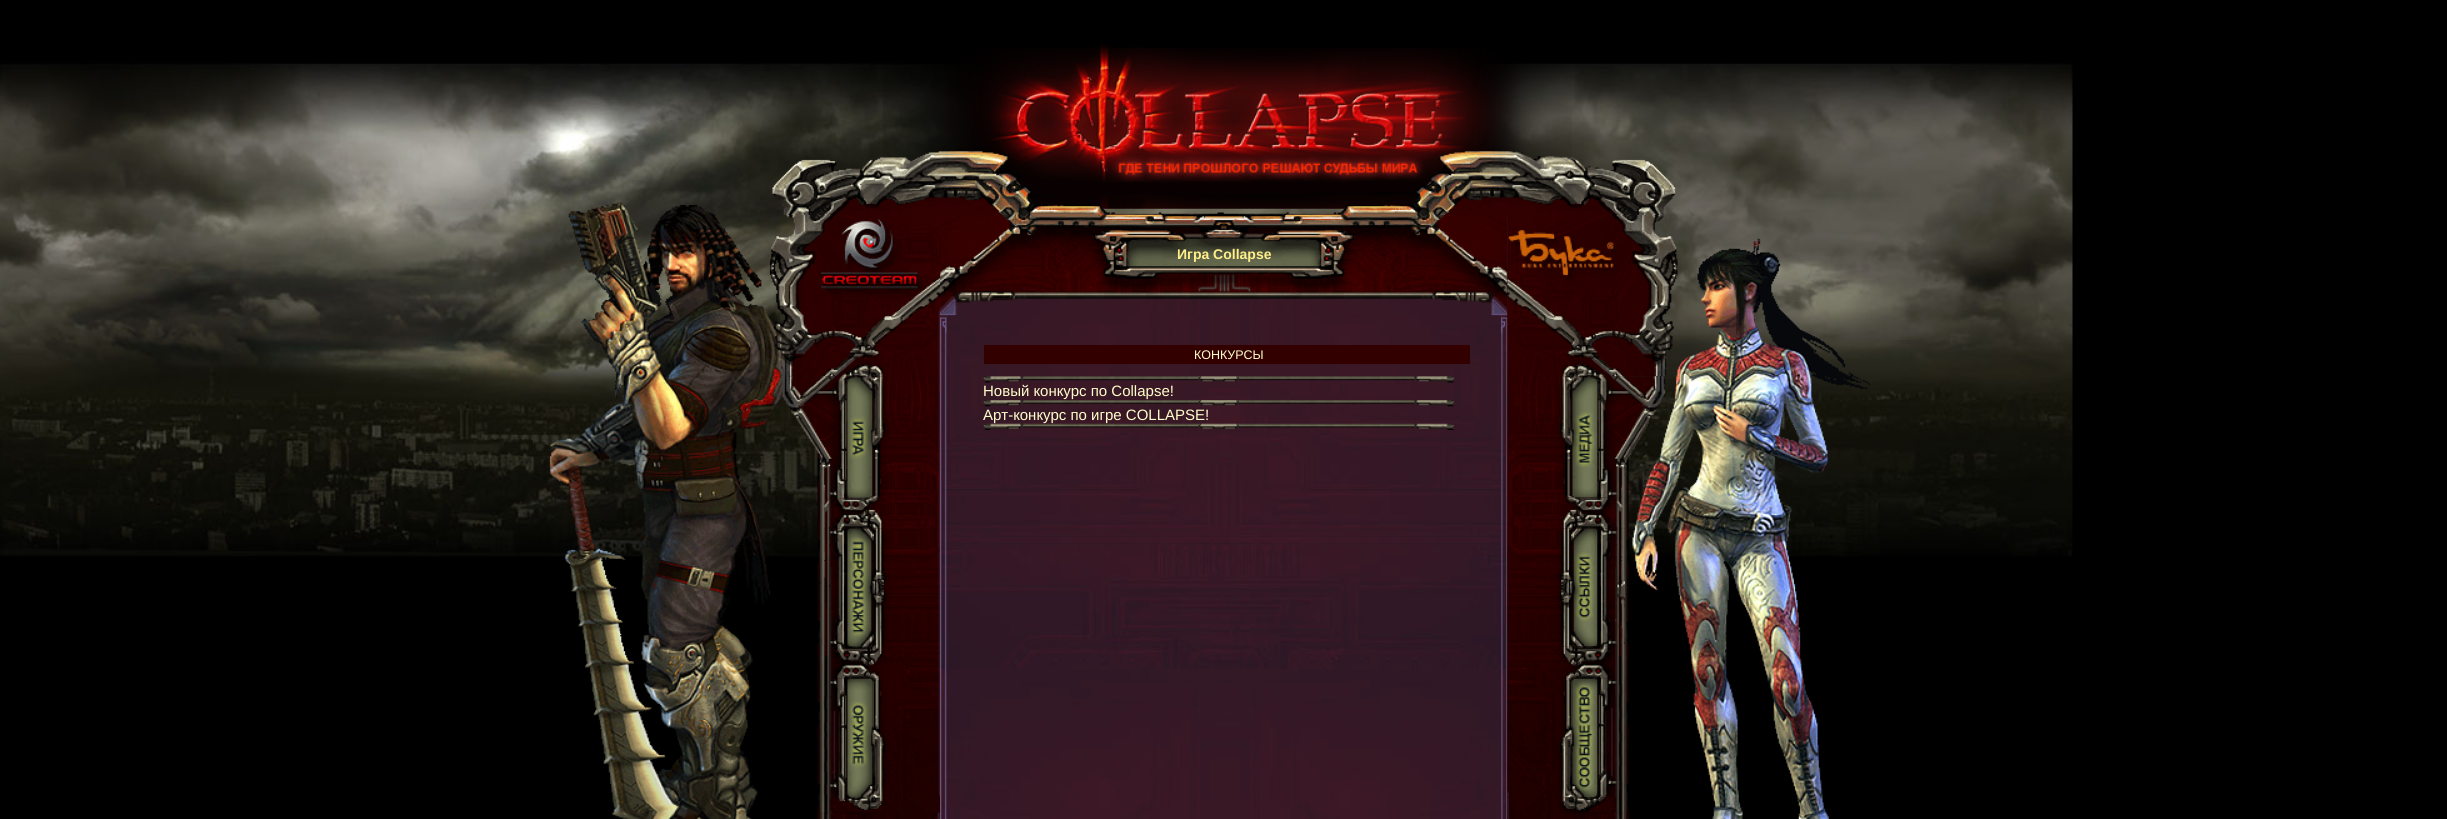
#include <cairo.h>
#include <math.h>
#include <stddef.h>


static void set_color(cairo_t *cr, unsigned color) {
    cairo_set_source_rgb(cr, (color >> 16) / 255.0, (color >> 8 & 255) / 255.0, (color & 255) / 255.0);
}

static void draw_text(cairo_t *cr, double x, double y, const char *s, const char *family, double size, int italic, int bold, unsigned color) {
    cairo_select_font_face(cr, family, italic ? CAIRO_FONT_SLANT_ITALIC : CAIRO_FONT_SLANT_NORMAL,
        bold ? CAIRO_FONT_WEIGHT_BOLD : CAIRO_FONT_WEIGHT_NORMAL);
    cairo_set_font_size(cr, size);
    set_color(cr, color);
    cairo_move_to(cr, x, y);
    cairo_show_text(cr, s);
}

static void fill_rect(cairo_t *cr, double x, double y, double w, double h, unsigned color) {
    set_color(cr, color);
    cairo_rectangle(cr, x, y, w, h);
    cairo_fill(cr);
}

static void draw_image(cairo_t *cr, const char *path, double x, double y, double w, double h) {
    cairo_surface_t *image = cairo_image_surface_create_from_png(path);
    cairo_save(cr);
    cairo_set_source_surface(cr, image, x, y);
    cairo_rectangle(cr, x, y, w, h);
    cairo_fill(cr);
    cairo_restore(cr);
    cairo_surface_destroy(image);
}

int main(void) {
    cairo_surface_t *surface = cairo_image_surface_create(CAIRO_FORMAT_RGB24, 2447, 819);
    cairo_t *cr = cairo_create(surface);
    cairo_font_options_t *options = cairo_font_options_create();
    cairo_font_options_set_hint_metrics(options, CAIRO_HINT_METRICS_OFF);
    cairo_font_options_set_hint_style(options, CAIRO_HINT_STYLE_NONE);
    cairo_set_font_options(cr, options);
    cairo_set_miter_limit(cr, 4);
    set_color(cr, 0x000000);
    cairo_paint(cr);
    draw_image(cr, "assets/img1.png", 0, 63, 2073, 494);
    draw_image(cr, "assets/img2.png", 883, 43, 689, 166);
    draw_image(cr, "assets/img3.png", 549, 202, 237, 617);
    draw_image(cr, "assets/img4.png", 1632, 238, 238, 581);
    draw_image(cr, "assets/img5.png", 772, 151, 904, 64);
    draw_image(cr, "assets/img6.png", 817, 376, 123, 437);
    draw_image(cr, "assets/img7.png", 770, 215, 170, 162);
    draw_image(cr, "assets/img8.png", 782, 376, 66, 123);
    draw_image(cr, "assets/img9.png", 847, 376, 26, 123);
    draw_image(cr, "assets/img10.png", 872, 376, 68, 123);
    draw_image(cr, "assets/img11.png", 820, 498, 120, 31);
    draw_image(cr, "assets/img12.png", 820, 528, 28, 124);
    draw_image(cr, "assets/img13.png", 847, 528, 26, 124);
    draw_image(cr, "assets/img14.png", 872, 528, 68, 124);
    draw_image(cr, "assets/img15.png", 820, 651, 120, 28);
    draw_image(cr, "assets/img16.png", 820, 678, 28, 124);
    draw_image(cr, "assets/img17.png", 847, 678, 26, 124);
    draw_image(cr, "assets/img18.png", 872, 678, 68, 124);
    draw_image(cr, "assets/img39.png", 819, 812, 121, 1);
    draw_image(cr, "assets/img19.png", 820, 801, 106, 12);
    draw_image(cr, "assets/img20.png", 940, 215, 568, 604);
    draw_image(cr, "assets/img21.png", 940, 215, 568, 118);
    draw_text(cr, 1177, 259, "Игра Collapse", "Liberation Sans", 14, 0, 1, 0xFFEF89);
    fill_rect(cr, 984, 345, 486, 19, 0x330000);
    draw_text(cr, 1194, 359, "КОНКУРСЫ", "Liberation Sans", 12.5, 0, 0, 0xFFFFCC);
    draw_image(cr, "assets/img22.png", 983, 376, 471, 7);
    draw_text(cr, 983, 396, "Новый конкурс по Collapse!", "Liberation Sans", 15, 0, 0, 0xFFFFCC);
    draw_image(cr, "assets/img23.png", 983, 400, 471, 7);
    draw_text(cr, 983, 420, "Арт-конкурс по игре COLLAPSE!", "Liberation Sans", 15, 0, 0, 0xFFFFCC);
    draw_image(cr, "assets/img24.png", 983, 423, 471, 7);
    draw_image(cr, "assets/img25.png", 1507, 215, 122, 598);
    draw_image(cr, "assets/img26.png", 1507, 215, 171, 162);
    draw_image(cr, "assets/img27.png", 1507, 376, 66, 122);
    draw_image(cr, "assets/img28.png", 1572, 376, 26, 122);
    draw_image(cr, "assets/img29.png", 1597, 376, 69, 122);
    draw_image(cr, "assets/img30.png", 1507, 497, 120, 32);
    draw_image(cr, "assets/img31.png", 1507, 528, 66, 119);
    draw_image(cr, "assets/img32.png", 1572, 528, 26, 119);
    draw_image(cr, "assets/img33.png", 1597, 528, 30, 119);
    draw_image(cr, "assets/img34.png", 1507, 646, 120, 33);
    draw_image(cr, "assets/img35.png", 1507, 678, 66, 120);
    draw_image(cr, "assets/img36.png", 1572, 678, 26, 120);
    draw_image(cr, "assets/img37.png", 1597, 678, 30, 120);
    draw_image(cr, "assets/img41.png", 1507, 812, 120, 7);
    draw_image(cr, "assets/img38.png", 1507, 797, 120, 16);
    draw_image(cr, "assets/img40.png", 817, 812, 123, 7);
    draw_image(cr, "assets/img42.png", 1508, 812, 121, 7);
    cairo_surface_write_to_png(surface, "output.png");
    cairo_font_options_destroy(options);
    cairo_destroy(cr);
    cairo_surface_destroy(surface);
    return 0;
}
